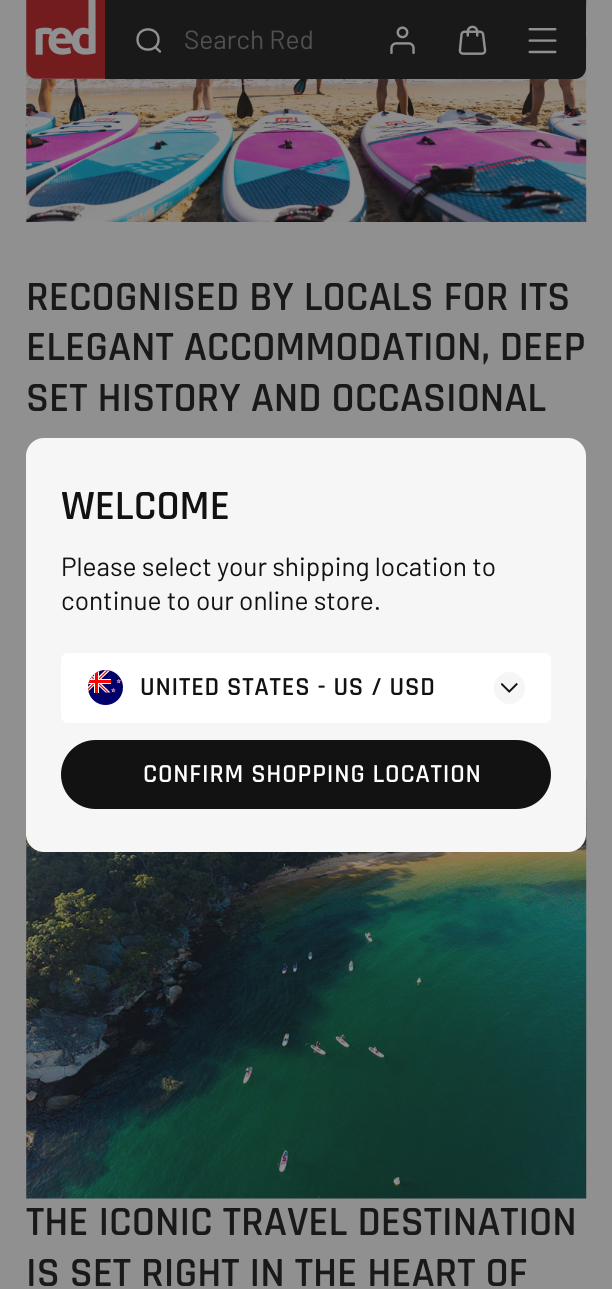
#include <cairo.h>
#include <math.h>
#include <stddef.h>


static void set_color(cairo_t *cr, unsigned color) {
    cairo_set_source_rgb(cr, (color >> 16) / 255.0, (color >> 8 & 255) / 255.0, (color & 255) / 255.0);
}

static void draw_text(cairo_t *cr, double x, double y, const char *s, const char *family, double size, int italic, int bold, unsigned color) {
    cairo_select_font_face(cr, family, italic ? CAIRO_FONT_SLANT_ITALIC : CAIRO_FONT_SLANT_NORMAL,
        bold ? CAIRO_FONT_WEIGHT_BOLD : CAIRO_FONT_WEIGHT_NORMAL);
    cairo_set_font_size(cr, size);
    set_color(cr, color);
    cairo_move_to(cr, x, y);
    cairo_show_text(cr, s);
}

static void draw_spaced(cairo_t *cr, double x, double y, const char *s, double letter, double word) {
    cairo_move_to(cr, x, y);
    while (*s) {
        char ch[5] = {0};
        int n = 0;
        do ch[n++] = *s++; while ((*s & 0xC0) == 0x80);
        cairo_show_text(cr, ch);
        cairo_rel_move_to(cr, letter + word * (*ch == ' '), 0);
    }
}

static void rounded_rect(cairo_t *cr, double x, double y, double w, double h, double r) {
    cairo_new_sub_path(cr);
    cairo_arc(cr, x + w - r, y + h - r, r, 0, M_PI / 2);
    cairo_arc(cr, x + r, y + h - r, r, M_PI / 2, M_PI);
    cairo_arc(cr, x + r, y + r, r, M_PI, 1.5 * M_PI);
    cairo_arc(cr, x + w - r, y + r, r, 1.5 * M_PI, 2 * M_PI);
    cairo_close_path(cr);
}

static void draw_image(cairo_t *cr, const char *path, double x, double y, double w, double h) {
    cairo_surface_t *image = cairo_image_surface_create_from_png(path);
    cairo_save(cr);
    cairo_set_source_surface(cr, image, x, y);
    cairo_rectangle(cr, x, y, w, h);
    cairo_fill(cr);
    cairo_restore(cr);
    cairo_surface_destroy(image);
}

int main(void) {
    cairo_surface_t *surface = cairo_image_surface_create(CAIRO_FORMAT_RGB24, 612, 1289);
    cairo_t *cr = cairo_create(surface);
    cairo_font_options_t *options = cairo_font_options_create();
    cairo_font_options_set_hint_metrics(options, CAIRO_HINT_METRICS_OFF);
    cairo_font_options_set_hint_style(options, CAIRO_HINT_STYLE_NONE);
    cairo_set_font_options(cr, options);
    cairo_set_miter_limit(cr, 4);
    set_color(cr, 0x909090);
    cairo_paint(cr);
    draw_image(cr, "assets/img5.png", 26, 0, 561, 222);
    set_color(cr, 0x191919);
    cairo_new_path(cr);
    cairo_move_to(cr, 26, 0);
    cairo_line_to(cr, 586, 0);
    cairo_line_to(cr, 586, 68);
    cairo_curve_to(cr, 586, 74, 581, 79, 575, 79);
    cairo_line_to(cr, 37, 79);
    cairo_curve_to(cr, 31, 79, 26, 74, 26, 68);
    cairo_close_path(cr);
    cairo_fill(cr);
    draw_image(cr, "assets/img1.png", 26, 0, 79, 79);
    cairo_new_path(cr);
    cairo_move_to(cr, 155, 47);
    cairo_line_to(cr, 160, 51.5);
    cairo_move_to(cr, 158.5, 39.5);
    cairo_curve_to(cr, 158.5, 53, 137.5, 53, 137.5, 39.5);
    cairo_curve_to(cr, 137.5, 26, 158.5, 26, 158.5, 39.5);
    cairo_close_path(cr);
    set_color(cr, 0x909090);
    cairo_set_line_width(cr, 2.4);
    cairo_set_line_cap(cr, CAIRO_LINE_CAP_ROUND);
    cairo_stroke(cr);
    draw_text(cr, 184, 49, "Search Red", "Barlow", 26.25, 0, 0, 0x505050);
    draw_image(cr, "assets/img2.png", 390, 26, 25, 28);
    draw_image(cr, "assets/img3.png", 458, 25, 29, 30);
    draw_image(cr, "assets/img4.png", 528, 28, 29, 26);
    draw_text(cr, 26, 310, "RECOGNISED BY LOCALS FOR ITS", "Rajdhani SemiBold", 42, 0, 0, 0x191919);
    draw_text(cr, 26, 360, "ELEGANT ACCOMMODATION, DEEP", "Rajdhani SemiBold", 42, 0, 0, 0x191919);
    draw_text(cr, 26, 411, "SET HISTORY AND OCCASIONAL", "Rajdhani SemiBold", 42, 0, 0, 0x191919);
    draw_image(cr, "assets/img6.png", 26, 776, 561, 423);
    draw_text(cr, 26, 1235, "THE ICONIC TRAVEL DESTINATION", "Rajdhani SemiBold", 42, 0, 0, 0x191919);
    draw_text(cr, 26, 1286, "IS SET RIGHT IN THE HEART OF", "Rajdhani SemiBold", 42, 0, 0, 0x191919);
    set_color(cr, 0xF6F6F6);
    rounded_rect(cr, 26, 438, 560, 414, 18);
    cairo_fill(cr);
    draw_text(cr, 61, 519, "WELCOME", "Rajdhani SemiBold", 42, 0, 0, 0x121212);
    draw_text(cr, 61, 576, "Please select your shipping location to", "Barlow", 26.25, 0, 0, 0x121212);
    draw_text(cr, 61, 610, "continue to our online store.", "Barlow", 26.25, 0, 0, 0x121212);
    set_color(cr, 0xFFFFFF);
    rounded_rect(cr, 61, 653, 490, 70, 7);
    cairo_fill(cr);
    draw_image(cr, "assets/img7.png", 88, 670, 35, 35);
    cairo_select_font_face(cr, "Rajdhani SemiBold", CAIRO_FONT_SLANT_NORMAL, CAIRO_FONT_WEIGHT_NORMAL);
    set_color(cr, 0x121212);
    draw_spaced(cr, 140, 695, "UNITED STATES - US / USD", 0.8, 0);
    set_color(cr, 0xF6F6F6);
    rounded_rect(cr, 494, 672, 31, 32, 15.5);
    cairo_fill(cr);
    draw_image(cr, "assets/img8.png", 501, 683, 17, 10);
    set_color(cr, 0x121212);
    rounded_rect(cr, 61, 740, 490, 69, 34.5);
    cairo_fill(cr);
    set_color(cr, 0xFFFFFF);
    draw_spaced(cr, 143, 782, "CONFIRM SHOPPING LOCATION", 0.8, 0);
    cairo_surface_write_to_png(surface, "output.png");
    cairo_font_options_destroy(options);
    cairo_destroy(cr);
    cairo_surface_destroy(surface);
    return 0;
}
